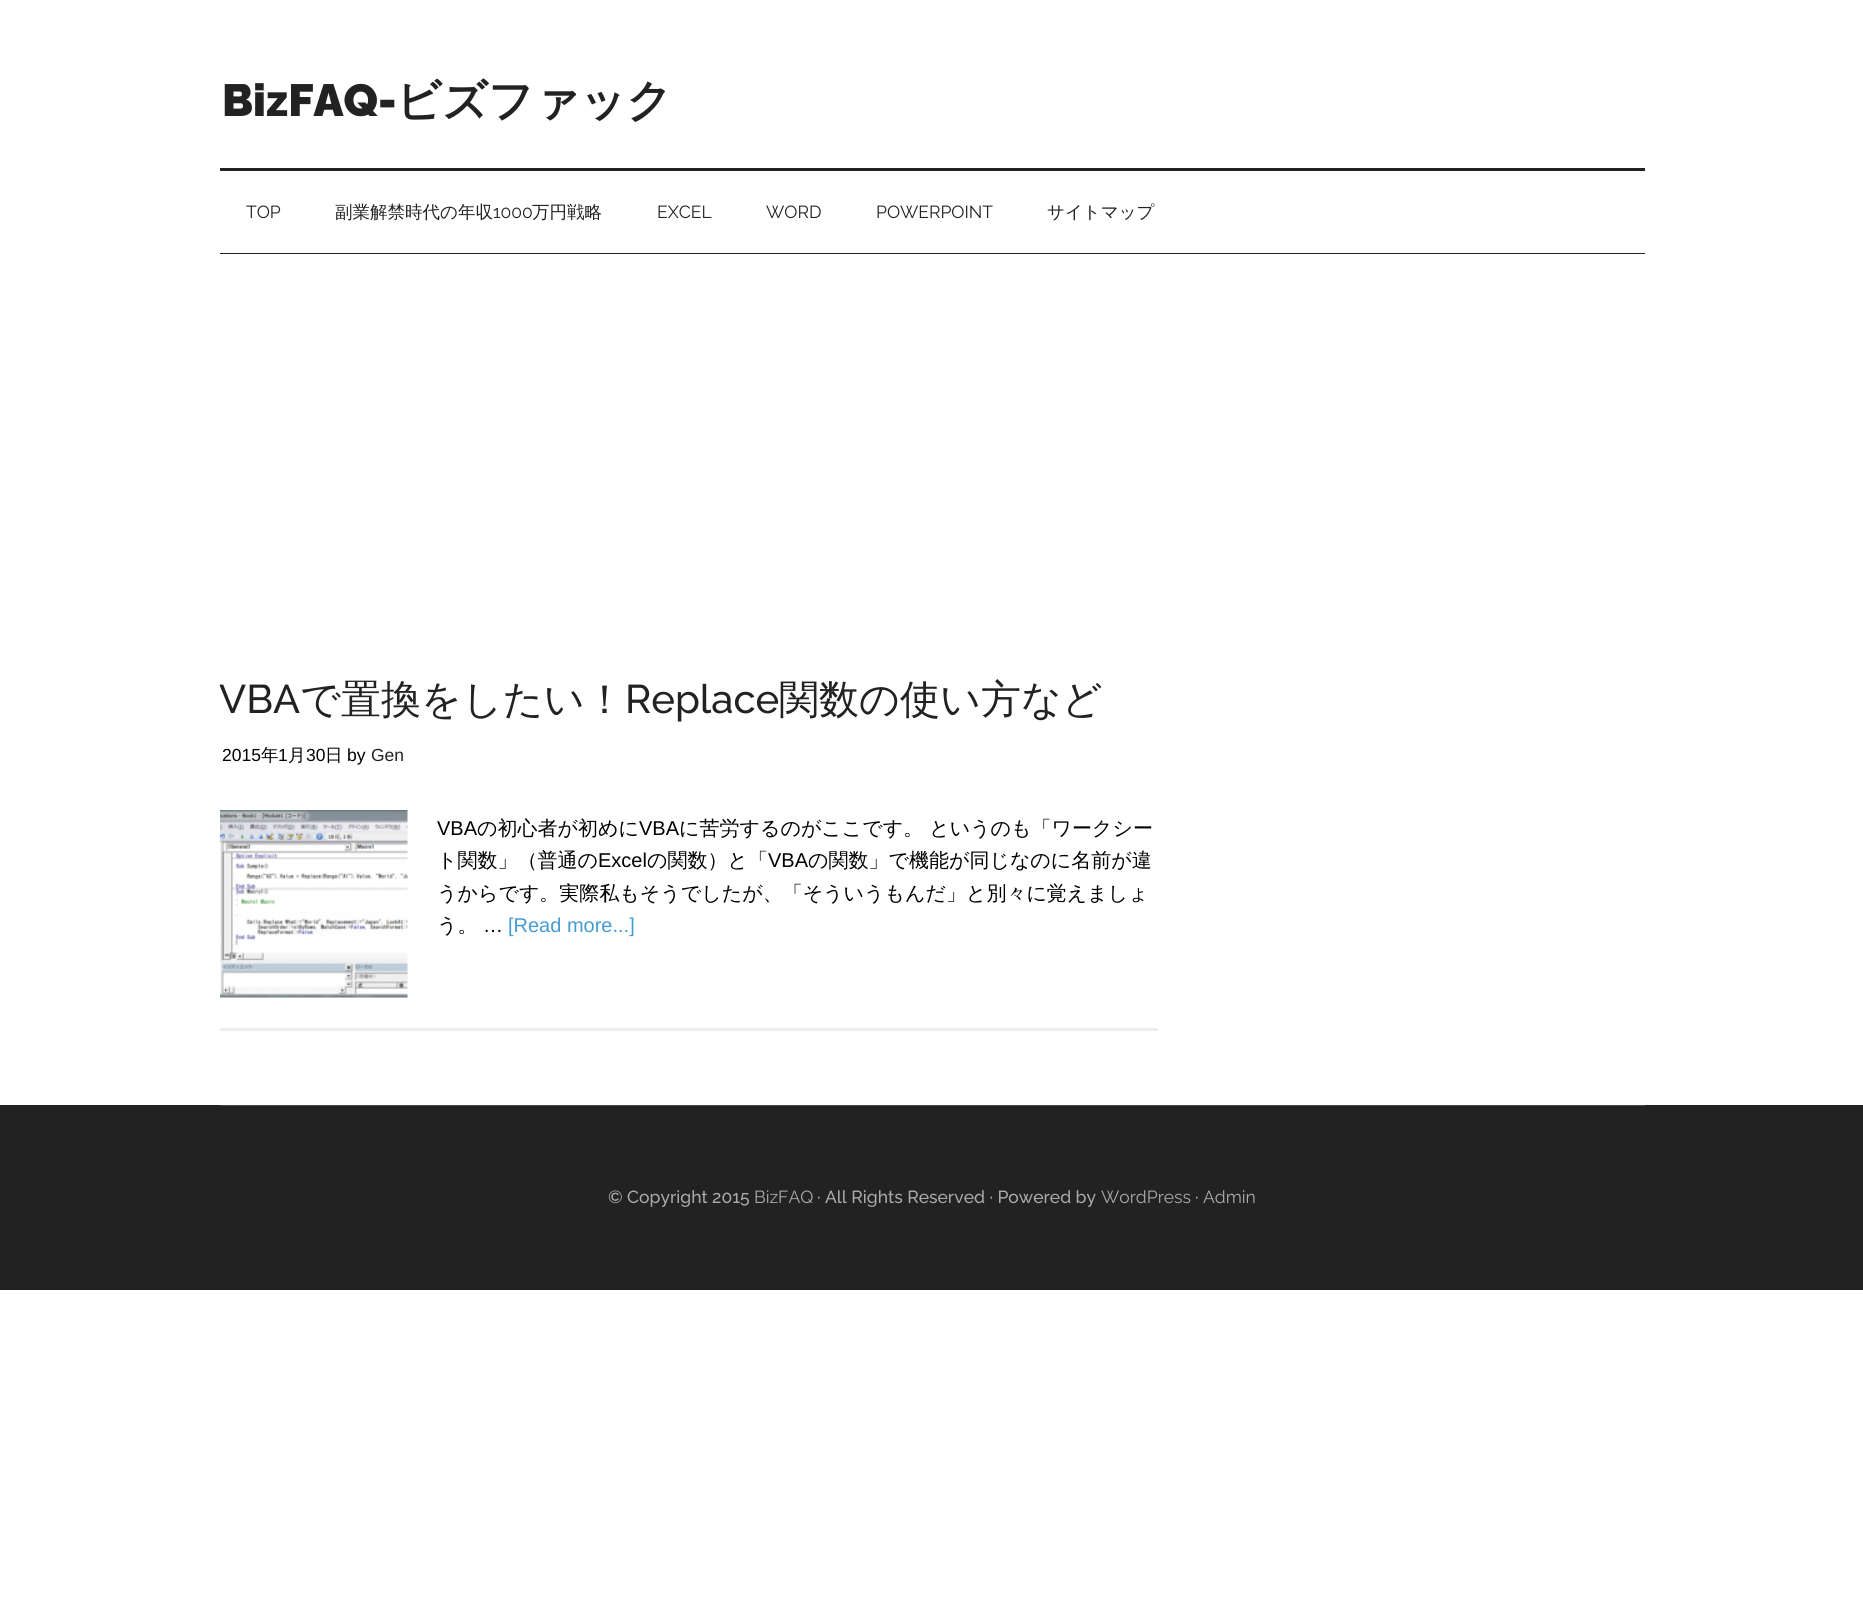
#include <cairo.h>
#include <math.h>
#include <stddef.h>


static void set_color(cairo_t *cr, unsigned color) {
    cairo_set_source_rgb(cr, (color >> 16) / 255.0, (color >> 8 & 255) / 255.0, (color & 255) / 255.0);
}

static void draw_text(cairo_t *cr, double x, double y, const char *s, const char *family, double size, int italic, int bold, unsigned color) {
    cairo_select_font_face(cr, family, italic ? CAIRO_FONT_SLANT_ITALIC : CAIRO_FONT_SLANT_NORMAL,
        bold ? CAIRO_FONT_WEIGHT_BOLD : CAIRO_FONT_WEIGHT_NORMAL);
    cairo_set_font_size(cr, size);
    set_color(cr, color);
    cairo_move_to(cr, x, y);
    cairo_show_text(cr, s);
}

static void fill_rect(cairo_t *cr, double x, double y, double w, double h, unsigned color) {
    set_color(cr, color);
    cairo_rectangle(cr, x, y, w, h);
    cairo_fill(cr);
}

static void draw_image(cairo_t *cr, const char *path, double x, double y, double w, double h) {
    cairo_surface_t *image = cairo_image_surface_create_from_png(path);
    cairo_save(cr);
    cairo_set_source_surface(cr, image, x, y);
    cairo_rectangle(cr, x, y, w, h);
    cairo_fill(cr);
    cairo_restore(cr);
    cairo_surface_destroy(image);
}

int main(void) {
    cairo_surface_t *surface = cairo_image_surface_create(CAIRO_FORMAT_RGB24, 1863, 1622);
    cairo_t *cr = cairo_create(surface);
    cairo_font_options_t *options = cairo_font_options_create();
    cairo_font_options_set_hint_metrics(options, CAIRO_HINT_METRICS_OFF);
    cairo_font_options_set_hint_style(options, CAIRO_HINT_STYLE_NONE);
    cairo_set_font_options(cr, options);
    cairo_set_miter_limit(cr, 4);
    set_color(cr, 0xFFFFFF);
    cairo_paint(cr);
    fill_rect(cr, 220, 168, 1425, 3, 0x222222);
    draw_text(cr, 222, 116, "BizFAQ-", "Raleway Black", 45, 0, 0, 0x222222);
    draw_text(cr, 396, 116, "ビズファック", "WenQuanYi Zen Hei", 45, 0, 1, 0x222222);
    fill_rect(cr, 220, 253, 1425, 1, 0x222222);
    draw_text(cr, 246, 218, "TOP", "Raleway", 17.5, 0, 0, 0x222222);
    draw_text(cr, 335, 218, "副業解禁時代の年収", "WenQuanYi Zen Hei Medium", 17.5, 0, 0, 0x222222);
    draw_text(cr, 493, 218, "1000", "Raleway", 17.5, 0, 0, 0x222222);
    draw_text(cr, 532, 218, "万円戦略", "WenQuanYi Zen Hei Medium", 17.5, 0, 0, 0x222222);
    draw_text(cr, 657, 218, "EXCEL", "Raleway", 17.5, 0, 0, 0x222222);
    draw_text(cr, 766, 218, "WORD", "Raleway", 17.5, 0, 0, 0x222222);
    draw_text(cr, 876, 218, "POWERPOINT", "Raleway", 17.5, 0, 0, 0x222222);
    draw_text(cr, 1047, 218, "サイトマップ", "WenQuanYi Zen Hei Medium", 17.5, 0, 0, 0x222222);
    fill_rect(cr, 220, 1028, 938, 3, 0xEEEEEE);
    draw_text(cr, 219, 713, "VBA", "Raleway Medium", 40, 0, 0, 0x222222);
    draw_text(cr, 300, 713, "で置換をしたい！", "WenQuanYi Zen Hei Medium", 40, 0, 0, 0x222222);
    draw_text(cr, 625, 713, "Replace", "Raleway Medium", 40, 0, 0, 0x222222);
    draw_text(cr, 779, 713, "関数の使い方など", "WenQuanYi Zen Hei Medium", 40, 0, 0, 0x222222);
    draw_text(cr, 222, 761, "2015", "Liberation Sans", 17.5, 0, 0, 0x000000);
    draw_text(cr, 261, 761, "年", "WenQuanYi Zen Hei Medium", 17.5, 0, 0, 0x000000);
    draw_text(cr, 278, 761, "1", "Liberation Sans", 17.5, 0, 0, 0x000000);
    draw_text(cr, 288, 761, "月", "WenQuanYi Zen Hei Medium", 17.5, 0, 0, 0x000000);
    draw_text(cr, 306, 761, "30", "Liberation Sans", 17.5, 0, 0, 0x000000);
    draw_text(cr, 325, 761, "日", "WenQuanYi Zen Hei Medium", 17.5, 0, 0, 0x000000);
    draw_text(cr, 347, 761, "by", "Liberation Sans", 17.5, 0, 0, 0x000000);
    draw_text(cr, 371, 761, "Gen", "Liberation Sans", 17.5, 0, 0, 0x222222);
    draw_image(cr, "assets/img1.png", 220, 810, 188, 188);
    draw_text(cr, 437, 835, "VBA", "Liberation Sans", 20, 0, 0, 0x000000);
    draw_text(cr, 477, 835, "の初心者が初めに", "WenQuanYi Zen Hei Medium", 20, 0, 0, 0x000000);
    draw_text(cr, 639, 835, "VBA", "Liberation Sans", 20, 0, 0, 0x000000);
    draw_text(cr, 679, 835, "に苦労するのがここです。 というのも「ワークシー", "WenQuanYi Zen Hei Medium", 20, 0, 0, 0x000000);
    draw_text(cr, 437, 867, "ト関数」（普通の", "WenQuanYi Zen Hei Medium", 20, 0, 0, 0x000000);
    draw_text(cr, 598, 867, "Excel", "Liberation Sans", 20, 0, 0, 0x000000);
    draw_text(cr, 647, 867, "の関数）と「", "WenQuanYi Zen Hei Medium", 20, 0, 0, 0x000000);
    draw_text(cr, 768, 867, "VBA", "Liberation Sans", 20, 0, 0, 0x000000);
    draw_text(cr, 808, 867, "の関数」で機能が同じなのに名前が違", "WenQuanYi Zen Hei Medium", 20, 0, 0, 0x000000);
    draw_text(cr, 437, 900, "うからです。実際私もそうでしたが、「そういうもんだ」と別々に覚えましょ", "WenQuanYi Zen Hei Medium", 20, 0, 0, 0x000000);
    draw_text(cr, 437, 932, "う。", "WenQuanYi Zen Hei Medium", 20, 0, 0, 0x000000);
    draw_text(cr, 483, 932, "…", "Liberation Sans", 20, 0, 0, 0x000000);
    draw_text(cr, 508, 932, "[Read more...]", "Liberation Sans", 20, 0, 0, 0x469BD1);
    fill_rect(cr, 0, 1105, 1863, 185, 0x222222);
    fill_rect(cr, 220, 1105, 1425, 1, 0x444444);
    draw_text(cr, 608, 1203, "© Copyright 2015", "Raleway Medium", 17.5, 0, 0, 0xAAAAAA);
    draw_text(cr, 754, 1203, "BizFAQ", "Raleway", 17.5, 0, 0, 0xAAAAAA);
    draw_text(cr, 817, 1203, "· All Rights Reserved · Powered by", "Raleway Medium", 17.5, 0, 0, 0xAAAAAA);
    draw_text(cr, 1101, 1203, "WordPress", "Raleway", 17.5, 0, 0, 0xAAAAAA);
    draw_text(cr, 1195, 1203, "·", "Raleway Medium", 17.5, 0, 0, 0xAAAAAA);
    draw_text(cr, 1203, 1203, "Admin", "Raleway", 17.5, 0, 0, 0xAAAAAA);
    cairo_surface_write_to_png(surface, "output.png");
    cairo_font_options_destroy(options);
    cairo_destroy(cr);
    cairo_surface_destroy(surface);
    return 0;
}
